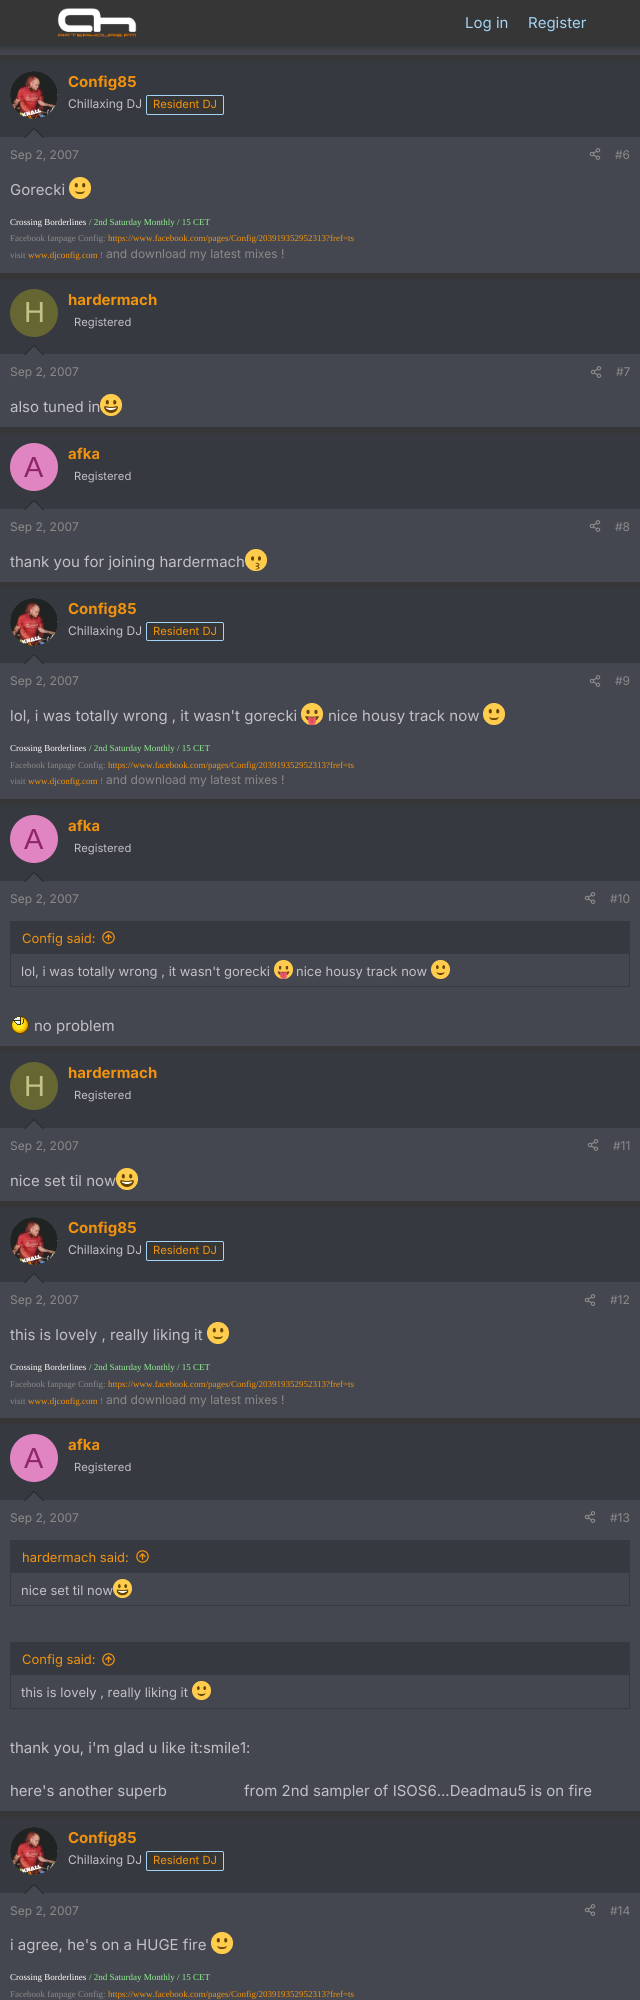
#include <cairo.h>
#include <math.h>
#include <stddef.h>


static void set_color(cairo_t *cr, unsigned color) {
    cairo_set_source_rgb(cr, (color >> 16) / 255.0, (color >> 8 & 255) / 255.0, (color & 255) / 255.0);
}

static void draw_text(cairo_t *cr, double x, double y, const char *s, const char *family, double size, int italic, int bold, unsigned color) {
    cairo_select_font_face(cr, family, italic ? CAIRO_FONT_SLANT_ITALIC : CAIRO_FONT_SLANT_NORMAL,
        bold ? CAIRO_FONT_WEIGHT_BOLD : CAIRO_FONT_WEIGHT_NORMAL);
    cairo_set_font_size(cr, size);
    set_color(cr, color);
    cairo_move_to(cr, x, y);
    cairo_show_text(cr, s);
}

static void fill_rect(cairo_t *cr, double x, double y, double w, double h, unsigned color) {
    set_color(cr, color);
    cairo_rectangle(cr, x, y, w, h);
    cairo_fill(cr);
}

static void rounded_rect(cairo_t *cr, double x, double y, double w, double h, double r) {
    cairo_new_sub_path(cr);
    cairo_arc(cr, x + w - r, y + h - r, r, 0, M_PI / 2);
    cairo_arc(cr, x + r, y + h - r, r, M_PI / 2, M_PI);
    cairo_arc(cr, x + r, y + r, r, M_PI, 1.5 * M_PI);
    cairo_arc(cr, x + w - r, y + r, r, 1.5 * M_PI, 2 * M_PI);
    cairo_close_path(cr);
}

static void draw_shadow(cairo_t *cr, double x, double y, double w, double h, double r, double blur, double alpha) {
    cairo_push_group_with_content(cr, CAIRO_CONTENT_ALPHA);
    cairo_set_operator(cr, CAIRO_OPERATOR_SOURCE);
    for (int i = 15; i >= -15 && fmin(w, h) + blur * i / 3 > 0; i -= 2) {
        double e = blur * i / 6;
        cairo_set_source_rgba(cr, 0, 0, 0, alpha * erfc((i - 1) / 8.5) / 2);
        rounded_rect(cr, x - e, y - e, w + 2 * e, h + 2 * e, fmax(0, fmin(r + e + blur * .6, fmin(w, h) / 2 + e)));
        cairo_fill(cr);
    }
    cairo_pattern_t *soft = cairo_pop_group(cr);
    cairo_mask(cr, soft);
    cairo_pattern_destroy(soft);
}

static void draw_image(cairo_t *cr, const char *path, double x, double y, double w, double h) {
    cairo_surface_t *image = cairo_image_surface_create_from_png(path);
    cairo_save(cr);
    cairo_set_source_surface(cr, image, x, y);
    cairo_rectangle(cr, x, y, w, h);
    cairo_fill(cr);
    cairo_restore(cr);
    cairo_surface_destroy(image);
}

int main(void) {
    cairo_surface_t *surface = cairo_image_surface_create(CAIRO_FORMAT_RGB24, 640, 2000);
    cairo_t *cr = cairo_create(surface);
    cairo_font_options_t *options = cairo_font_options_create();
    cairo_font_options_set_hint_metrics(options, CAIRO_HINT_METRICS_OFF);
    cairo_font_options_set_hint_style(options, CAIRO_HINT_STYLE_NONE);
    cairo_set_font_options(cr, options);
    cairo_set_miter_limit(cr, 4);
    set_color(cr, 0x363636);
    cairo_paint(cr);
    fill_rect(cr, 0, 45, 640, 10, 0x44474F);
    set_color(cr, 0x000000);
    draw_shadow(cr, -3, -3, 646, 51, 0, 4, 0.3);
    fill_rect(cr, 0, 0, 640, 45, 0x363636);
    draw_image(cr, "assets/img1.png", 57, 8, 80, 29);
    draw_text(cr, 465, 28, "Log in", "Inter", 15, 0, 0, 0xA3D4F5);
    draw_text(cr, 528, 28, "Register", "Inter", 15, 0, 0, 0xA3D4F5);
    fill_rect(cr, 0, 137, 640, 136, 0x44474F);
    fill_rect(cr, 0, 61, 640, 76, 0x363940);
    set_color(cr, 0x44474F);
    cairo_new_path(cr);
    cairo_arc(cr, 34, 95, 24, 0, 2 * M_PI);
    cairo_fill(cr);
    draw_image(cr, "assets/img2.png", 10, 71, 48, 48);
    draw_text(cr, 68, 87, "Config85", "Inter", 15, 0, 1, 0xF2930D);
    draw_text(cr, 68, 108, "Chillaxing DJ", "Inter", 12, 0, 0, 0xC1C1C7);
    set_color(cr, 0x363636);
    rounded_rect(cr, 146.5, 95.5, 77, 19, 1.5);
    cairo_fill_preserve(cr);
    set_color(cr, 0xA3D4F5);
    cairo_set_line_width(cr, 1);
    cairo_stroke(cr);
    draw_text(cr, 153, 108, "Resident DJ", "Inter", 11.25, 0, 0, 0xF2930D);
    set_color(cr, 0x1E2023);
    cairo_new_path(cr);
    cairo_move_to(cr, 44, 138);
    cairo_line_to(cr, 24, 138);
    cairo_line_to(cr, 34, 128);
    cairo_close_path(cr);
    cairo_fill(cr);
    set_color(cr, 0x44474F);
    cairo_new_path(cr);
    cairo_move_to(cr, 43, 138);
    cairo_line_to(cr, 25, 138);
    cairo_line_to(cr, 34, 129);
    cairo_close_path(cr);
    cairo_fill(cr);
    draw_text(cr, 10, 159, "Sep 2, 2007", "Inter", 12, 0, 0, 0x8A8A8A);
    draw_image(cr, "assets/img3.png", 589, 148, 12, 12);
    draw_text(cr, 615, 159, "#6", "Inter", 12, 0, 0, 0x8A8A8A);
    draw_text(cr, 10, 195, "Gorecki", "Inter", 15, 0, 0, 0xC1C1C7);
    draw_image(cr, "assets/img4.png", 69, 177, 22, 22);
    draw_text(cr, 10, 225, "Crossing Borderlines", "Liberation Serif", 9, 0, 0, 0xFFFFFF);
    draw_text(cr, 89, 225, "/ 2nd Saturday Monthly / 15 CET", "Liberation Serif", 9, 0, 0, 0x90EE90);
    draw_text(cr, 10, 241, "Facebook fanpage Config:", "Liberation Serif", 9, 0, 0, 0x8A8A8A);
    draw_text(cr, 108, 241, "https://www.facebook.com/pages/Config/203919352952313?fref=ts", "Liberation Serif", 9, 0, 0, 0xF2930D);
    draw_text(cr, 10, 258, "visit", "Liberation Serif", 9, 0, 0, 0x8A8A8A);
    draw_text(cr, 28, 258, "www.djconfig.com", "Liberation Serif", 9, 0, 0, 0xF2930D);
    draw_text(cr, 100, 258, "!", "Liberation Serif", 9, 0, 0, 0x8A8A8A);
    draw_text(cr, 106, 258, "and download my latest mixes !", "Inter", 12, 0, 0, 0x8A8A8A);
    fill_rect(cr, 0, 354, 640, 73, 0x44474F);
    fill_rect(cr, 0, 279, 640, 75, 0x363940);
    set_color(cr, 0x666633);
    cairo_new_path(cr);
    cairo_arc(cr, 34, 313, 24, 0, 2 * M_PI);
    cairo_fill(cr);
    draw_text(cr, 24, 322, "H", "Liberation Sans", 29, 0, 0, 0xC3C388);
    draw_text(cr, 68, 305, "hardermach", "Inter", 15, 0, 1, 0xF2930D);
    draw_text(cr, 74, 326, "Registered", "Inter", 11.25, 0, 0, 0xC1C1C7);
    set_color(cr, 0x1E2023);
    cairo_new_path(cr);
    cairo_move_to(cr, 44, 355);
    cairo_line_to(cr, 24, 355);
    cairo_line_to(cr, 34, 345);
    cairo_close_path(cr);
    cairo_fill(cr);
    set_color(cr, 0x44474F);
    cairo_new_path(cr);
    cairo_move_to(cr, 43, 355);
    cairo_line_to(cr, 25, 355);
    cairo_line_to(cr, 34, 346);
    cairo_close_path(cr);
    cairo_fill(cr);
    draw_text(cr, 10, 376, "Sep 2, 2007", "Inter", 12, 0, 0, 0x8A8A8A);
    draw_image(cr, "assets/img3.png", 590, 366, 12, 12);
    draw_text(cr, 616, 376, "#7", "Inter", 12, 0, 0, 0x8A8A8A);
    draw_text(cr, 10, 412, "also tuned in", "Inter", 15, 0, 0, 0xC1C1C7);
    draw_image(cr, "assets/img5.png", 100, 394, 22, 22);
    fill_rect(cr, 0, 509, 640, 73, 0x44474F);
    fill_rect(cr, 0, 433, 640, 76, 0x363940);
    set_color(cr, 0xE085C2);
    cairo_arc(cr, 34, 467, 24, 0, 2 * M_PI);
    cairo_fill(cr);
    draw_text(cr, 24, 477, "A", "Liberation Sans", 29, 0, 0, 0x8F246B);
    draw_text(cr, 68, 459, "afka", "Inter", 15, 0, 1, 0xF2930D);
    draw_text(cr, 74, 480, "Registered", "Inter", 11.25, 0, 0, 0xC1C1C7);
    set_color(cr, 0x1E2023);
    cairo_new_path(cr);
    cairo_move_to(cr, 44, 510);
    cairo_line_to(cr, 24, 510);
    cairo_line_to(cr, 34, 500);
    cairo_close_path(cr);
    cairo_fill(cr);
    set_color(cr, 0x44474F);
    cairo_new_path(cr);
    cairo_move_to(cr, 43, 510);
    cairo_line_to(cr, 25, 510);
    cairo_line_to(cr, 34, 501);
    cairo_close_path(cr);
    cairo_fill(cr);
    draw_text(cr, 10, 531, "Sep 2, 2007", "Inter", 12, 0, 0, 0x8A8A8A);
    draw_image(cr, "assets/img3.png", 589, 520, 12, 12);
    draw_text(cr, 615, 531, "#8", "Inter", 12, 0, 0, 0x8A8A8A);
    draw_text(cr, 10, 567, "thank you for joining hardermach", "Inter", 15, 0, 0, 0xC1C1C7);
    draw_image(cr, "assets/img6.png", 245, 549, 22, 22);
    fill_rect(cr, 0, 663, 640, 136, 0x44474F);
    fill_rect(cr, 0, 588, 640, 75, 0x363940);
    set_color(cr, 0x44474F);
    cairo_arc(cr, 34, 622, 24, 0, 2 * M_PI);
    cairo_fill(cr);
    draw_image(cr, "assets/img7.png", 10, 598, 48, 48);
    draw_text(cr, 68, 614, "Config85", "Inter", 15, 0, 1, 0xF2930D);
    draw_text(cr, 68, 635, "Chillaxing DJ", "Inter", 12, 0, 0, 0xC1C1C7);
    set_color(cr, 0x363636);
    rounded_rect(cr, 146.5, 622.5, 77, 18, 1.5);
    cairo_fill_preserve(cr);
    set_color(cr, 0xA3D4F5);
    cairo_stroke(cr);
    draw_text(cr, 153, 635, "Resident DJ", "Inter", 11.25, 0, 0, 0xF2930D);
    set_color(cr, 0x1E2023);
    cairo_new_path(cr);
    cairo_move_to(cr, 44, 664);
    cairo_line_to(cr, 24, 664);
    cairo_line_to(cr, 34, 654);
    cairo_close_path(cr);
    cairo_fill(cr);
    set_color(cr, 0x44474F);
    cairo_new_path(cr);
    cairo_move_to(cr, 43, 664);
    cairo_line_to(cr, 25, 664);
    cairo_line_to(cr, 34, 655);
    cairo_close_path(cr);
    cairo_fill(cr);
    draw_text(cr, 10, 685, "Sep 2, 2007", "Inter", 12, 0, 0, 0x8A8A8A);
    draw_image(cr, "assets/img3.png", 589, 675, 12, 12);
    draw_text(cr, 615, 685, "#9", "Inter", 12, 0, 0, 0x8A8A8A);
    draw_text(cr, 10, 721, "lol, i was totally wrong , it wasn't gorecki", "Inter", 15, 0, 0, 0xC1C1C7);
    draw_image(cr, "assets/img8.png", 301, 703, 22, 22);
    draw_text(cr, 328, 721, "nice housy track now", "Inter", 15, 0, 0, 0xC1C1C7);
    draw_image(cr, "assets/img9.png", 483, 703, 22, 22);
    draw_text(cr, 10, 751, "Crossing Borderlines", "Liberation Serif", 9, 0, 0, 0xFFFFFF);
    draw_text(cr, 89, 751, "/ 2nd Saturday Monthly / 15 CET", "Liberation Serif", 9, 0, 0, 0x90EE90);
    draw_text(cr, 10, 768, "Facebook fanpage Config:", "Liberation Serif", 9, 0, 0, 0x8A8A8A);
    draw_text(cr, 108, 768, "https://www.facebook.com/pages/Config/203919352952313?fref=ts", "Liberation Serif", 9, 0, 0, 0xF2930D);
    draw_text(cr, 10, 784, "visit", "Liberation Serif", 9, 0, 0, 0x8A8A8A);
    draw_text(cr, 28, 784, "www.djconfig.com", "Liberation Serif", 9, 0, 0, 0xF2930D);
    draw_text(cr, 100, 784, "!", "Liberation Serif", 9, 0, 0, 0x8A8A8A);
    draw_text(cr, 106, 784, "and download my latest mixes !", "Inter", 12, 0, 0, 0x8A8A8A);
    fill_rect(cr, 0, 881, 640, 165, 0x44474F);
    fill_rect(cr, 0, 805, 640, 76, 0x363940);
    set_color(cr, 0xE085C2);
    cairo_new_path(cr);
    cairo_arc(cr, 34, 839, 24, 0, 2 * M_PI);
    cairo_fill(cr);
    draw_text(cr, 24, 849, "A", "Liberation Sans", 29, 0, 0, 0x8F246B);
    draw_text(cr, 68, 831, "afka", "Inter", 15, 0, 1, 0xF2930D);
    draw_text(cr, 74, 852, "Registered", "Inter", 11.25, 0, 0, 0xC1C1C7);
    set_color(cr, 0x1E2023);
    cairo_new_path(cr);
    cairo_move_to(cr, 44, 882);
    cairo_line_to(cr, 24, 882);
    cairo_line_to(cr, 34, 872);
    cairo_close_path(cr);
    cairo_fill(cr);
    set_color(cr, 0x44474F);
    cairo_new_path(cr);
    cairo_move_to(cr, 43, 882);
    cairo_line_to(cr, 25, 882);
    cairo_line_to(cr, 34, 873);
    cairo_close_path(cr);
    cairo_fill(cr);
    draw_text(cr, 10, 903, "Sep 2, 2007", "Inter", 12, 0, 0, 0x8A8A8A);
    draw_image(cr, "assets/img3.png", 584, 892, 12, 12);
    draw_text(cr, 610, 903, "#10", "Inter", 12, 0, 0, 0x8A8A8A);
    cairo_rectangle(cr, 10.5, 921.5, 619, 65);
    set_color(cr, 0x363940);
    cairo_stroke(cr);
    fill_rect(cr, 11, 922, 618, 32, 0x363940);
    draw_text(cr, 22, 943, "Config said:", "Inter", 13, 0, 0, 0xF2930D);
    draw_image(cr, "assets/img10.png", 102, 931, 13, 13);
    draw_text(cr, 21, 976, "lol, i was totally wrong , it wasn't gorecki", "Inter", 13, 0, 0, 0xC1C1C7);
    draw_image(cr, "assets/img11.png", 274, 960, 19, 19);
    draw_text(cr, 296, 976, "nice housy track now", "Inter", 13, 0, 0, 0xC1C1C7);
    draw_image(cr, "assets/img12.png", 431, 960, 19, 19);
    draw_image(cr, "assets/img13.png", 11, 1016, 18, 18);
    draw_text(cr, 34, 1031, "no problem", "Inter", 15, 0, 0, 0xC1C1C7);
    fill_rect(cr, 0, 1128, 640, 73, 0x44474F);
    fill_rect(cr, 0, 1052, 640, 76, 0x363940);
    set_color(cr, 0x666633);
    cairo_new_path(cr);
    cairo_arc(cr, 34, 1086, 24, 0, 2 * M_PI);
    cairo_fill(cr);
    draw_text(cr, 24, 1096, "H", "Liberation Sans", 29, 0, 0, 0xC3C388);
    draw_text(cr, 68, 1078, "hardermach", "Inter", 15, 0, 1, 0xF2930D);
    draw_text(cr, 74, 1099, "Registered", "Inter", 11.25, 0, 0, 0xC1C1C7);
    set_color(cr, 0x1E2023);
    cairo_new_path(cr);
    cairo_move_to(cr, 44, 1129);
    cairo_line_to(cr, 24, 1129);
    cairo_line_to(cr, 34, 1119);
    cairo_close_path(cr);
    cairo_fill(cr);
    set_color(cr, 0x44474F);
    cairo_new_path(cr);
    cairo_move_to(cr, 43, 1129);
    cairo_line_to(cr, 25, 1129);
    cairo_line_to(cr, 34, 1120);
    cairo_close_path(cr);
    cairo_fill(cr);
    draw_text(cr, 10, 1150, "Sep 2, 2007", "Inter", 12, 0, 0, 0x8A8A8A);
    draw_image(cr, "assets/img14.png", 587, 1139, 12, 12);
    draw_text(cr, 613, 1150, "#11", "Inter", 12, 0, 0, 0x8A8A8A);
    draw_text(cr, 10, 1186, "nice set til now", "Inter", 15, 0, 0, 0xC1C1C7);
    draw_image(cr, "assets/img15.png", 116, 1168, 22, 22);
    fill_rect(cr, 0, 1282, 640, 136, 0x44474F);
    fill_rect(cr, 0, 1207, 640, 75, 0x363940);
    set_color(cr, 0x44474F);
    cairo_arc(cr, 34, 1241, 24, 0, 2 * M_PI);
    cairo_fill(cr);
    draw_image(cr, "assets/img2.png", 10, 1217, 48, 48);
    draw_text(cr, 68, 1233, "Config85", "Inter", 15, 0, 1, 0xF2930D);
    draw_text(cr, 68, 1254, "Chillaxing DJ", "Inter", 12, 0, 0, 0xC1C1C7);
    set_color(cr, 0x363636);
    rounded_rect(cr, 146.5, 1241.5, 77, 19, 1.5);
    cairo_fill_preserve(cr);
    set_color(cr, 0xA3D4F5);
    cairo_stroke(cr);
    draw_text(cr, 153, 1254, "Resident DJ", "Inter", 11.25, 0, 0, 0xF2930D);
    set_color(cr, 0x1E2023);
    cairo_new_path(cr);
    cairo_move_to(cr, 44, 1283);
    cairo_line_to(cr, 24, 1283);
    cairo_line_to(cr, 34, 1273);
    cairo_close_path(cr);
    cairo_fill(cr);
    set_color(cr, 0x44474F);
    cairo_new_path(cr);
    cairo_move_to(cr, 43, 1283);
    cairo_line_to(cr, 25, 1283);
    cairo_line_to(cr, 34, 1274);
    cairo_close_path(cr);
    cairo_fill(cr);
    draw_text(cr, 10, 1304, "Sep 2, 2007", "Inter", 12, 0, 0, 0x8A8A8A);
    draw_image(cr, "assets/img3.png", 584, 1294, 12, 12);
    draw_text(cr, 610, 1304, "#12", "Inter", 12, 0, 0, 0x8A8A8A);
    draw_text(cr, 10, 1340, "this is lovely , really liking it", "Inter", 15, 0, 0, 0xC1C1C7);
    draw_image(cr, "assets/img16.png", 207, 1322, 22, 22);
    draw_text(cr, 10, 1370, "Crossing Borderlines", "Liberation Serif", 9, 0, 0, 0xFFFFFF);
    draw_text(cr, 89, 1370, "/ 2nd Saturday Monthly / 15 CET", "Liberation Serif", 9, 0, 0, 0x90EE90);
    draw_text(cr, 10, 1387, "Facebook fanpage Config:", "Liberation Serif", 9, 0, 0, 0x8A8A8A);
    draw_text(cr, 108, 1387, "https://www.facebook.com/pages/Config/203919352952313?fref=ts", "Liberation Serif", 9, 0, 0, 0xF2930D);
    draw_text(cr, 10, 1404, "visit", "Liberation Serif", 9, 0, 0, 0x8A8A8A);
    draw_text(cr, 28, 1404, "www.djconfig.com", "Liberation Serif", 9, 0, 0, 0xF2930D);
    draw_text(cr, 100, 1404, "!", "Liberation Serif", 9, 0, 0, 0x8A8A8A);
    draw_text(cr, 106, 1404, "and download my latest mixes !", "Inter", 12, 0, 0, 0x8A8A8A);
    fill_rect(cr, 0, 1500, 640, 311, 0x44474F);
    fill_rect(cr, 0, 1424, 640, 76, 0x363940);
    set_color(cr, 0xE085C2);
    cairo_new_path(cr);
    cairo_arc(cr, 34, 1458, 24, 0, 2 * M_PI);
    cairo_fill(cr);
    draw_text(cr, 24, 1468, "A", "Liberation Sans", 29, 0, 0, 0x8F246B);
    draw_text(cr, 68, 1450, "afka", "Inter", 15, 0, 1, 0xF2930D);
    draw_text(cr, 74, 1471, "Registered", "Inter", 11.25, 0, 0, 0xC1C1C7);
    set_color(cr, 0x1E2023);
    cairo_new_path(cr);
    cairo_move_to(cr, 44, 1501);
    cairo_line_to(cr, 24, 1501);
    cairo_line_to(cr, 34, 1491);
    cairo_close_path(cr);
    cairo_fill(cr);
    set_color(cr, 0x44474F);
    cairo_new_path(cr);
    cairo_move_to(cr, 43, 1501);
    cairo_line_to(cr, 25, 1501);
    cairo_line_to(cr, 34, 1492);
    cairo_close_path(cr);
    cairo_fill(cr);
    draw_text(cr, 10, 1522, "Sep 2, 2007", "Inter", 12, 0, 0, 0x8A8A8A);
    draw_image(cr, "assets/img3.png", 584, 1511, 12, 12);
    draw_text(cr, 610, 1522, "#13", "Inter", 12, 0, 0, 0x8A8A8A);
    cairo_rectangle(cr, 10.5, 1540.5, 619, 65);
    set_color(cr, 0x363940);
    cairo_stroke(cr);
    fill_rect(cr, 11, 1541, 618, 32, 0x363940);
    draw_text(cr, 22, 1562, "hardermach said:", "Inter", 13, 0, 0, 0xF2930D);
    draw_image(cr, "assets/img10.png", 136, 1550, 13, 13);
    draw_text(cr, 21, 1595, "nice set til now", "Inter", 13, 0, 0, 0xC1C1C7);
    draw_image(cr, "assets/img17.png", 113, 1579, 19, 19);
    cairo_rectangle(cr, 10.5, 1642.5, 619, 66);
    set_color(cr, 0x363940);
    cairo_stroke(cr);
    fill_rect(cr, 11, 1643, 618, 32, 0x363940);
    draw_text(cr, 22, 1664, "Config said:", "Inter", 13, 0, 0, 0xF2930D);
    draw_image(cr, "assets/img10.png", 102, 1653, 13, 13);
    draw_text(cr, 21, 1697, "this is lovely , really liking it", "Inter", 13, 0, 0, 0xC1C1C7);
    draw_image(cr, "assets/img12.png", 192, 1681, 19, 19);
    draw_text(cr, 10, 1753, "thank you, i'm glad u like it:smile1:", "Inter", 15, 0, 0, 0xC1C1C7);
    draw_text(cr, 10, 1796, "here's another superb", "Inter", 15, 0, 0, 0xC1C1C7);
    draw_text(cr, 244, 1796, "from 2nd sampler of ISOS6...Deadmau5 is on fire", "Inter", 15, 0, 0, 0xC1C1C7);
    fill_rect(cr, 0, 1893, 640, 107, 0x44474F);
    fill_rect(cr, 0, 1817, 640, 76, 0x363940);
    set_color(cr, 0x44474F);
    cairo_new_path(cr);
    cairo_arc(cr, 34, 1851, 24, 0, 2 * M_PI);
    cairo_fill(cr);
    draw_image(cr, "assets/img2.png", 10, 1827, 48, 48);
    draw_text(cr, 68, 1843, "Config85", "Inter", 15, 0, 1, 0xF2930D);
    draw_text(cr, 68, 1864, "Chillaxing DJ", "Inter", 12, 0, 0, 0xC1C1C7);
    set_color(cr, 0x363636);
    rounded_rect(cr, 146.5, 1851.5, 77, 19, 1.5);
    cairo_fill_preserve(cr);
    set_color(cr, 0xA3D4F5);
    cairo_stroke(cr);
    draw_text(cr, 153, 1864, "Resident DJ", "Inter", 11.25, 0, 0, 0xF2930D);
    set_color(cr, 0x1E2023);
    cairo_new_path(cr);
    cairo_move_to(cr, 44, 1894);
    cairo_line_to(cr, 24, 1894);
    cairo_line_to(cr, 34, 1884);
    cairo_close_path(cr);
    cairo_fill(cr);
    set_color(cr, 0x44474F);
    cairo_new_path(cr);
    cairo_move_to(cr, 43, 1894);
    cairo_line_to(cr, 25, 1894);
    cairo_line_to(cr, 34, 1885);
    cairo_close_path(cr);
    cairo_fill(cr);
    draw_text(cr, 10, 1915, "Sep 2, 2007", "Inter", 12, 0, 0, 0x8A8A8A);
    draw_image(cr, "assets/img3.png", 584, 1904, 12, 12);
    draw_text(cr, 610, 1915, "#14", "Inter", 12, 0, 0, 0x8A8A8A);
    draw_text(cr, 10, 1950, "i agree, he's on a HUGE fire", "Inter", 15, 0, 0, 0xC1C1C7);
    draw_image(cr, "assets/img16.png", 211, 1932, 22, 22);
    draw_text(cr, 10, 1980, "Crossing Borderlines", "Liberation Serif", 9, 0, 0, 0xFFFFFF);
    draw_text(cr, 89, 1980, "/ 2nd Saturday Monthly / 15 CET", "Liberation Serif", 9, 0, 0, 0x90EE90);
    draw_text(cr, 10, 1997, "Facebook fanpage Config:", "Liberation Serif", 9, 0, 0, 0x8A8A8A);
    draw_text(cr, 108, 1997, "https://www.facebook.com/pages/Config/203919352952313?fref=ts", "Liberation Serif", 9, 0, 0, 0xF2930D);
    cairo_surface_write_to_png(surface, "output.png");
    cairo_font_options_destroy(options);
    cairo_destroy(cr);
    cairo_surface_destroy(surface);
    return 0;
}
